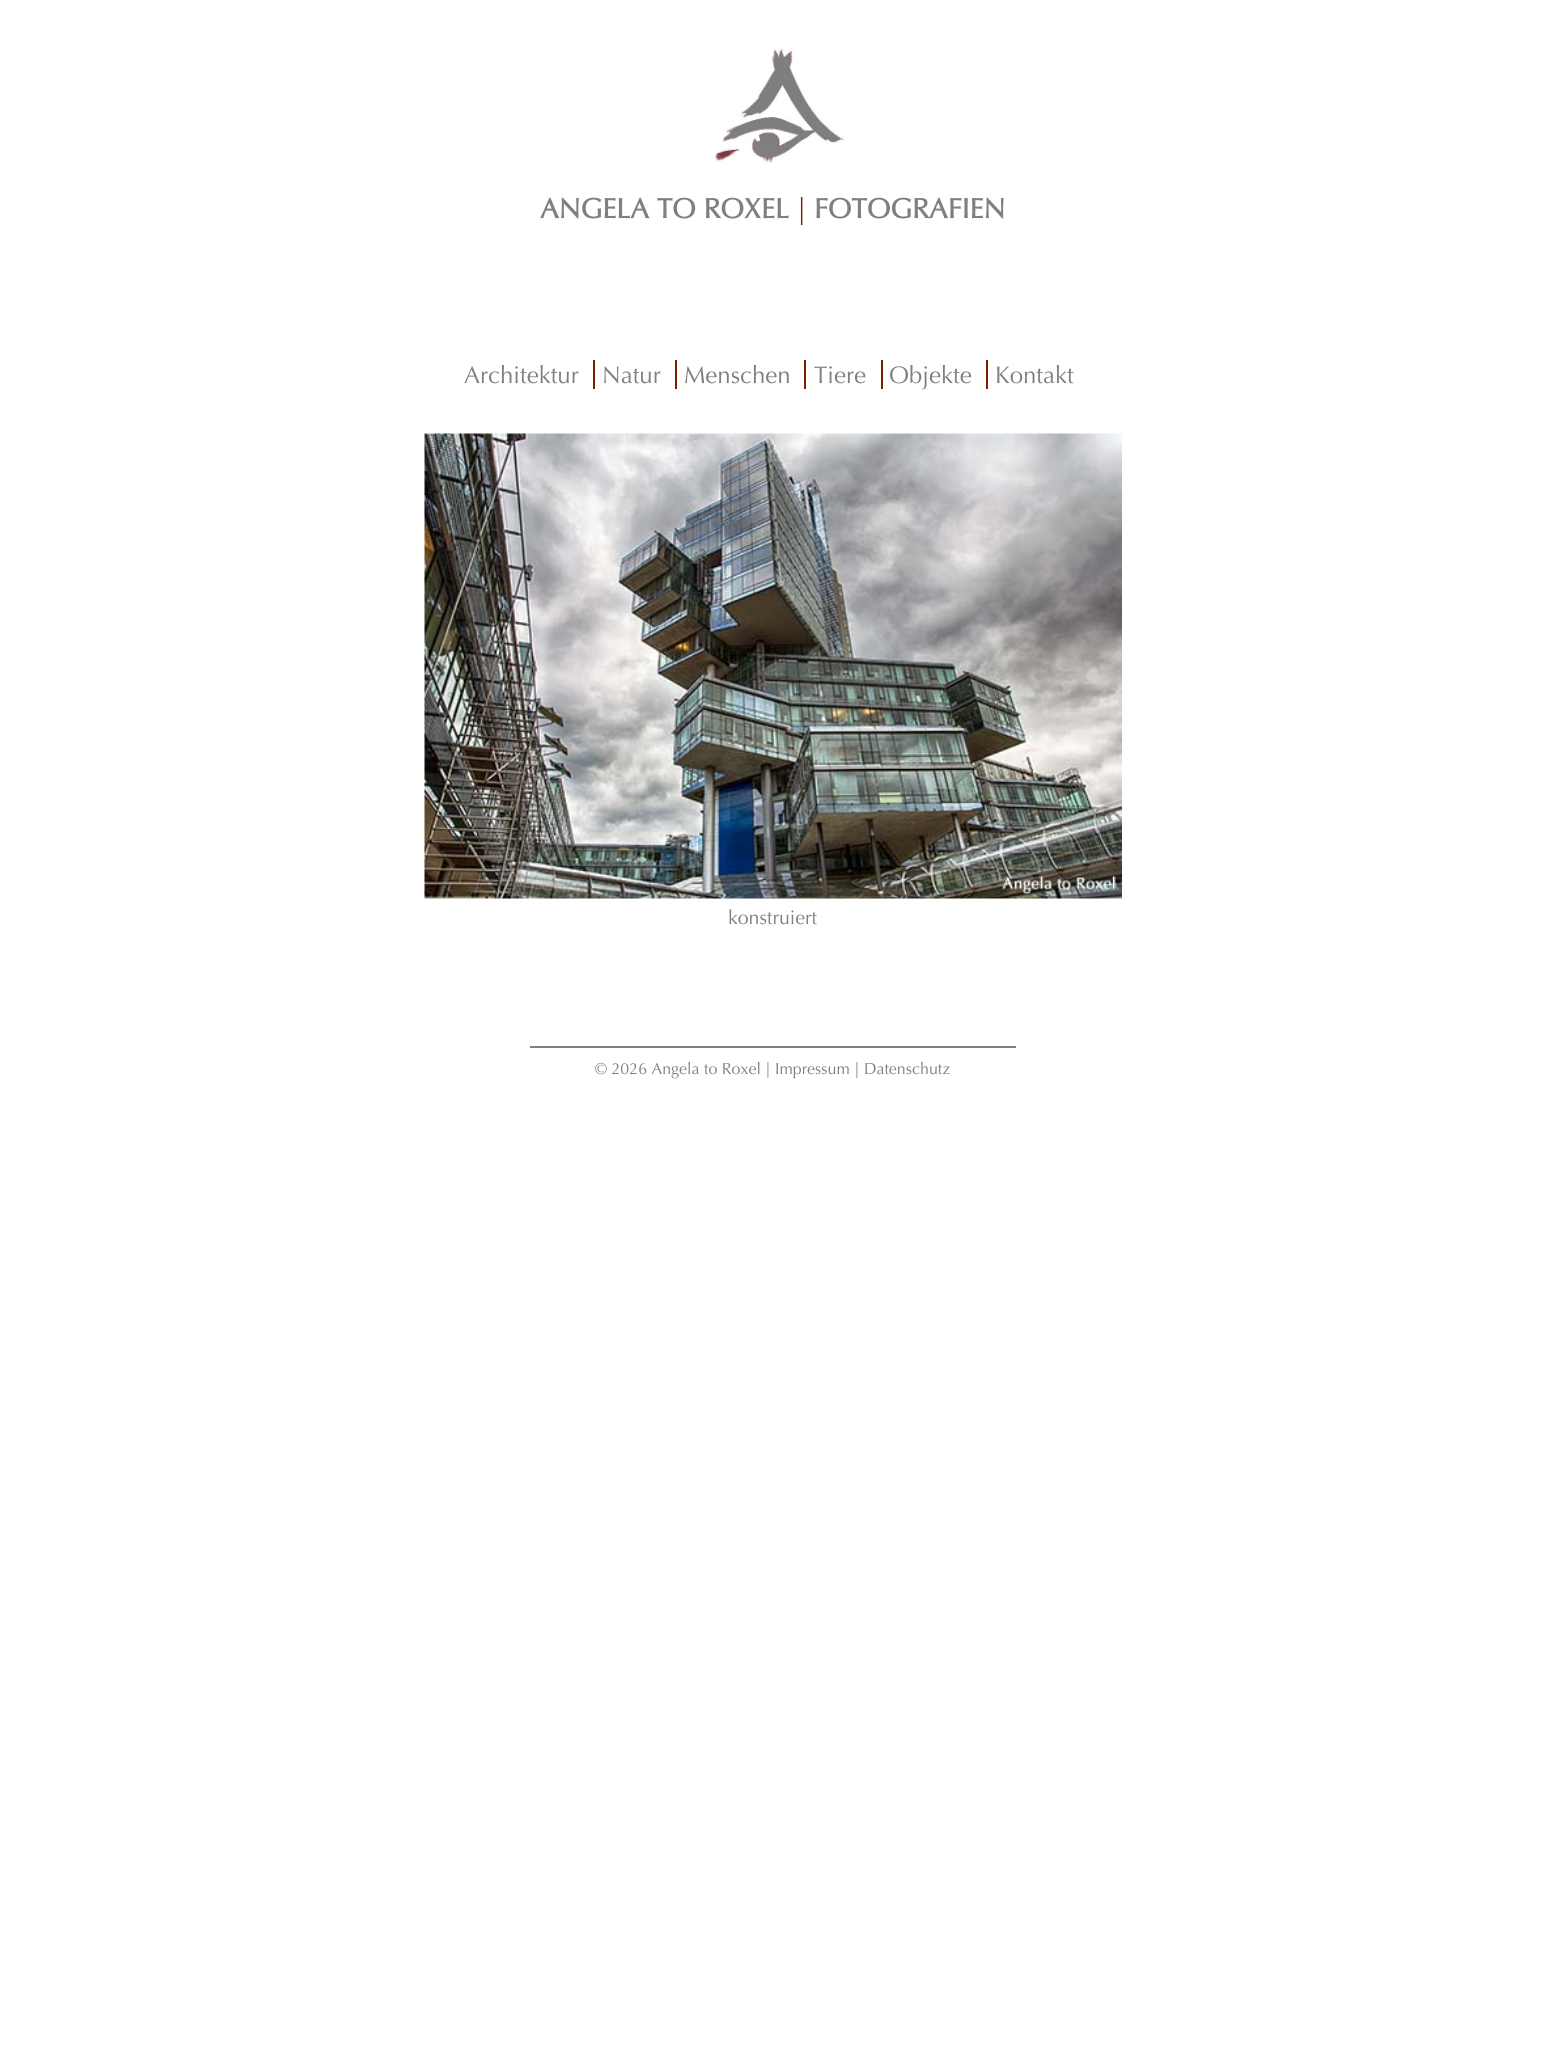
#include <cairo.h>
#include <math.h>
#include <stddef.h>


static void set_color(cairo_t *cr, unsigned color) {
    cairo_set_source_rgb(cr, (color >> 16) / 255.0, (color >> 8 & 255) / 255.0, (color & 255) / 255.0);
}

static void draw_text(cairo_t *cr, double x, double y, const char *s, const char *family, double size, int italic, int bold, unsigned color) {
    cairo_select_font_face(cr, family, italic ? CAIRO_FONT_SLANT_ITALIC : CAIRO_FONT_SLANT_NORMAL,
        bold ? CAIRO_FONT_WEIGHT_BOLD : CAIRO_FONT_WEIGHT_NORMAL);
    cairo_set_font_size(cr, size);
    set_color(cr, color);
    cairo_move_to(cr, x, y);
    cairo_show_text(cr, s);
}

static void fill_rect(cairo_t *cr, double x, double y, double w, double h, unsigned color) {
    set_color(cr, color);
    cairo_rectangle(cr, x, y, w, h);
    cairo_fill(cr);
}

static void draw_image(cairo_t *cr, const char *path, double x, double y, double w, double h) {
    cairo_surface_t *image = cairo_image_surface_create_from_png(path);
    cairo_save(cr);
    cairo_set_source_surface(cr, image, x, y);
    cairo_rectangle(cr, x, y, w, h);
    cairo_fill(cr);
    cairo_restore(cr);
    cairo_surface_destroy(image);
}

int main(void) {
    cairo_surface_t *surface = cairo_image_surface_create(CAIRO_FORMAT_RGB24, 1544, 2067);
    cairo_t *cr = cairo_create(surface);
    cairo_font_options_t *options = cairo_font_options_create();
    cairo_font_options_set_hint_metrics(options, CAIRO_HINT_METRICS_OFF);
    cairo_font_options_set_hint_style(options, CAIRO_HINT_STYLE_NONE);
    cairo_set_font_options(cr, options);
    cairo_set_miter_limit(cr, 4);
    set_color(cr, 0xFFFFFF);
    cairo_paint(cr);
    draw_image(cr, "assets/img1.png", 712, 48, 132, 115);
    draw_text(cr, 540, 218, "ANGELA TO ROXEL", "Optima", 28, 0, 1, 0x7F7F7F);
    draw_text(cr, 797, 218, "|", "Optima", 28, 0, 0, 0x7A1F00);
    draw_text(cr, 814, 218, "FOTOGRAFIEN", "Optima", 28, 0, 1, 0x7F7F7F);
    draw_text(cr, 464, 383, "Architektur", "Optima", 24, 0, 0, 0x7F7F7F);
    fill_rect(cr, 593, 360, 2, 29, 0x7A1F00);
    draw_text(cr, 602, 383, "Natur", "Optima", 24, 0, 0, 0x7F7F7F);
    fill_rect(cr, 675, 360, 2, 29, 0x7A1F00);
    draw_text(cr, 684, 383, "Menschen", "Optima", 24, 0, 0, 0x7F7F7F);
    fill_rect(cr, 804, 360, 2, 29, 0x7A1F00);
    draw_text(cr, 814, 383, "Tiere", "Optima", 24, 0, 0, 0x7F7F7F);
    fill_rect(cr, 881, 360, 2, 29, 0x7A1F00);
    draw_text(cr, 889, 383, "Objekte", "Optima", 24, 0, 0, 0x7F7F7F);
    fill_rect(cr, 986, 360, 2, 29, 0x7A1F00);
    draw_text(cr, 995, 383, "Kontakt", "Optima", 24, 0, 0, 0x7F7F7F);
    draw_image(cr, "assets/img2.png", 424, 433, 698, 466);
    draw_text(cr, 728, 924, "konstruiert", "Optima", 19.5, 0, 0, 0x7F7F7F);
    fill_rect(cr, 530, 1046, 486, 2, 0x808080);
    draw_text(cr, 595, 1074, "© 2026 Angela to Roxel | Impressum | Datenschutz", "Optima", 16, 0, 0, 0x7F7F7F);
    cairo_surface_write_to_png(surface, "output.png");
    cairo_font_options_destroy(options);
    cairo_destroy(cr);
    cairo_surface_destroy(surface);
    return 0;
}
